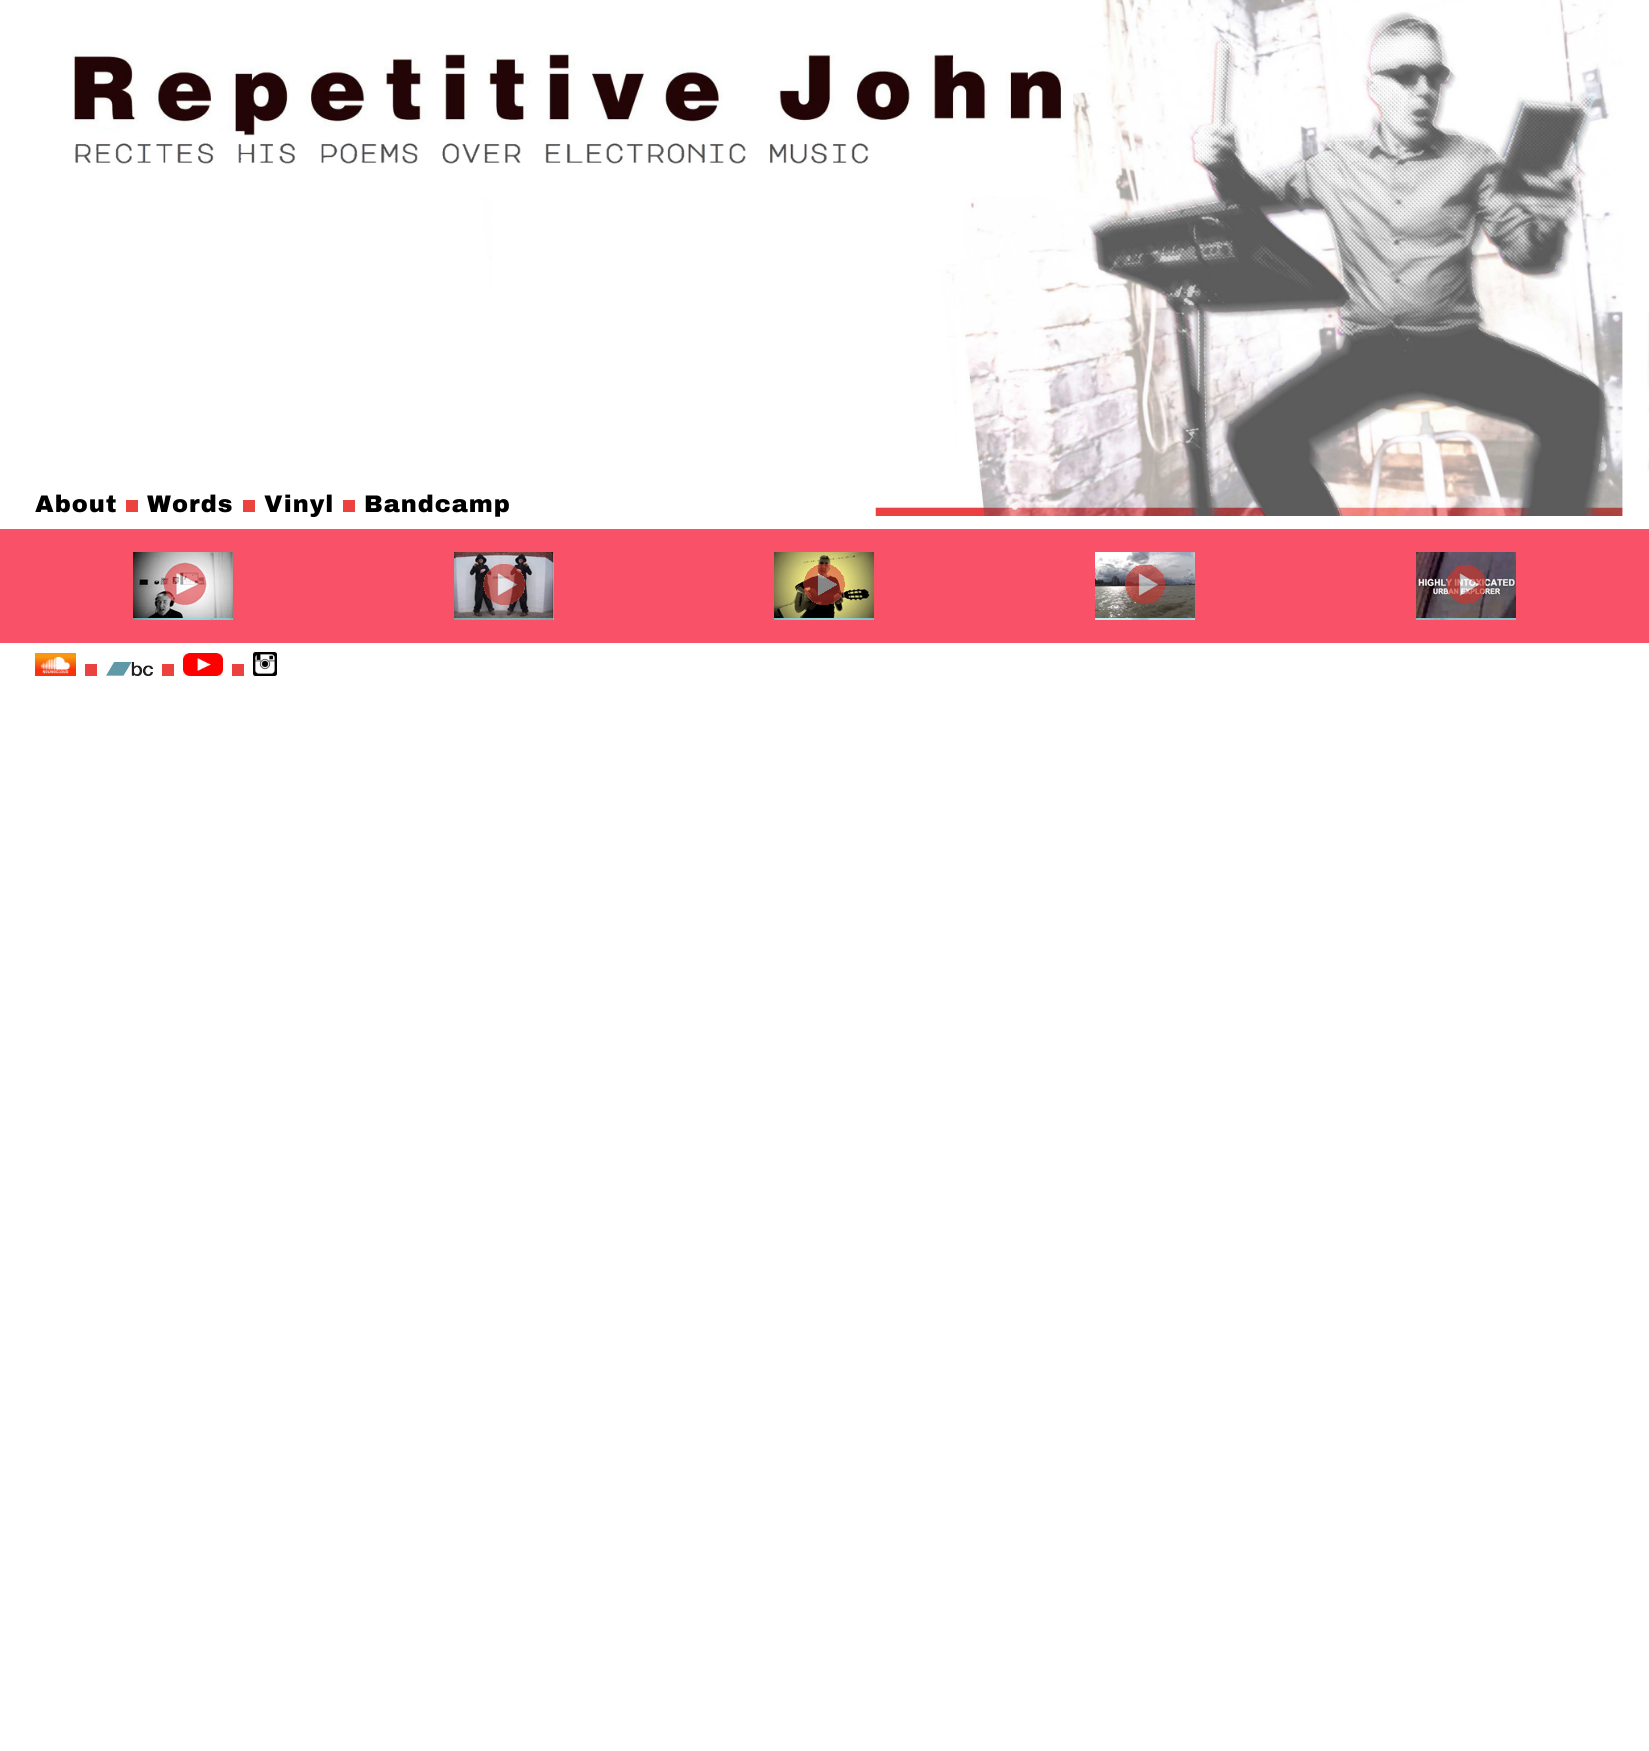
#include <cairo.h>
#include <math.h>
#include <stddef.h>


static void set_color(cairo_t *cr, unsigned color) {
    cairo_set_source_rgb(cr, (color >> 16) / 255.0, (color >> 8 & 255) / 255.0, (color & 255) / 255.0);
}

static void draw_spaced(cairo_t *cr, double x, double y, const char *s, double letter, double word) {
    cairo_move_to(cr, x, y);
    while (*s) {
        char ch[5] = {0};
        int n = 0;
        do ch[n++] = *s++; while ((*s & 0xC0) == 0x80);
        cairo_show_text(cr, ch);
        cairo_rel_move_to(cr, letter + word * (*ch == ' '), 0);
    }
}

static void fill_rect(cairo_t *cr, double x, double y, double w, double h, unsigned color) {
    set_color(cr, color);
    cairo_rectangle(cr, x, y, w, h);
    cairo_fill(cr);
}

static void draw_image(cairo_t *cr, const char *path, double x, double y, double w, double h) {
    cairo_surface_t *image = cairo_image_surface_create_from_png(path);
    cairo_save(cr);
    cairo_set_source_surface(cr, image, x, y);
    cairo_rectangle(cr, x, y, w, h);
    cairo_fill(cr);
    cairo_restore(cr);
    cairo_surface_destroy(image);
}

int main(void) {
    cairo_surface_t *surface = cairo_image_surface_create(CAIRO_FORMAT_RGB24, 1649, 1751);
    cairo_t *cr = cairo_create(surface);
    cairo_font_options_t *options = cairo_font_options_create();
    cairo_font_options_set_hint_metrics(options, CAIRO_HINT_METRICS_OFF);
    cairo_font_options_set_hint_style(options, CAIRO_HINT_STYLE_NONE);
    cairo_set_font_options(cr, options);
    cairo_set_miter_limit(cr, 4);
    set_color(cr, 0xFFFFFF);
    cairo_paint(cr);
    draw_image(cr, "assets/img1.png", 72, 0, 1577, 516);
    cairo_select_font_face(cr, "Archivo Black Black", CAIRO_FONT_SLANT_NORMAL, CAIRO_FONT_WEIGHT_NORMAL);
    cairo_set_font_size(cr, 24);
    set_color(cr, 0x000000);
    draw_spaced(cr, 35, 512, "About", 1, 0);
    fill_rect(cr, 126, 500, 12, 12, 0xEB423F);
    set_color(cr, 0x000000);
    draw_spaced(cr, 147, 512, "Words", 1, 0);
    fill_rect(cr, 243, 500, 12, 12, 0xEB423F);
    set_color(cr, 0x000000);
    draw_spaced(cr, 264, 512, "Vinyl", 1, 0);
    fill_rect(cr, 343, 500, 12, 12, 0xEB423F);
    set_color(cr, 0x000000);
    draw_spaced(cr, 364, 512, "Bandcamp", 1, 0);
    fill_rect(cr, 0, 529, 1649, 114, 0xF95168);
    draw_image(cr, "assets/img2.png", 133, 618, 100, 2);
    draw_image(cr, "assets/img3.png", 133, 552, 100, 66);
    draw_image(cr, "assets/img4.png", 454, 618, 100, 2);
    draw_image(cr, "assets/img5.png", 454, 552, 100, 66);
    draw_image(cr, "assets/img6.png", 774, 618, 100, 2);
    draw_image(cr, "assets/img7.png", 774, 552, 100, 66);
    draw_image(cr, "assets/img8.png", 1095, 618, 100, 2);
    draw_image(cr, "assets/img9.png", 1095, 552, 100, 66);
    draw_image(cr, "assets/img10.png", 1416, 618, 100, 2);
    draw_image(cr, "assets/img11.png", 1416, 552, 100, 66);
    draw_image(cr, "assets/img12.png", 35, 653, 41, 23);
    fill_rect(cr, 85, 664, 12, 12, 0xEB423F);
    draw_image(cr, "assets/img13.png", 106, 662, 47, 14);
    fill_rect(cr, 162, 664, 12, 12, 0xEB423F);
    draw_image(cr, "assets/img14.png", 183, 653, 40, 23);
    fill_rect(cr, 232, 664, 12, 12, 0xEB423F);
    draw_image(cr, "assets/img15.png", 253, 652, 24, 24);
    cairo_surface_write_to_png(surface, "output.png");
    cairo_font_options_destroy(options);
    cairo_destroy(cr);
    cairo_surface_destroy(surface);
    return 0;
}
